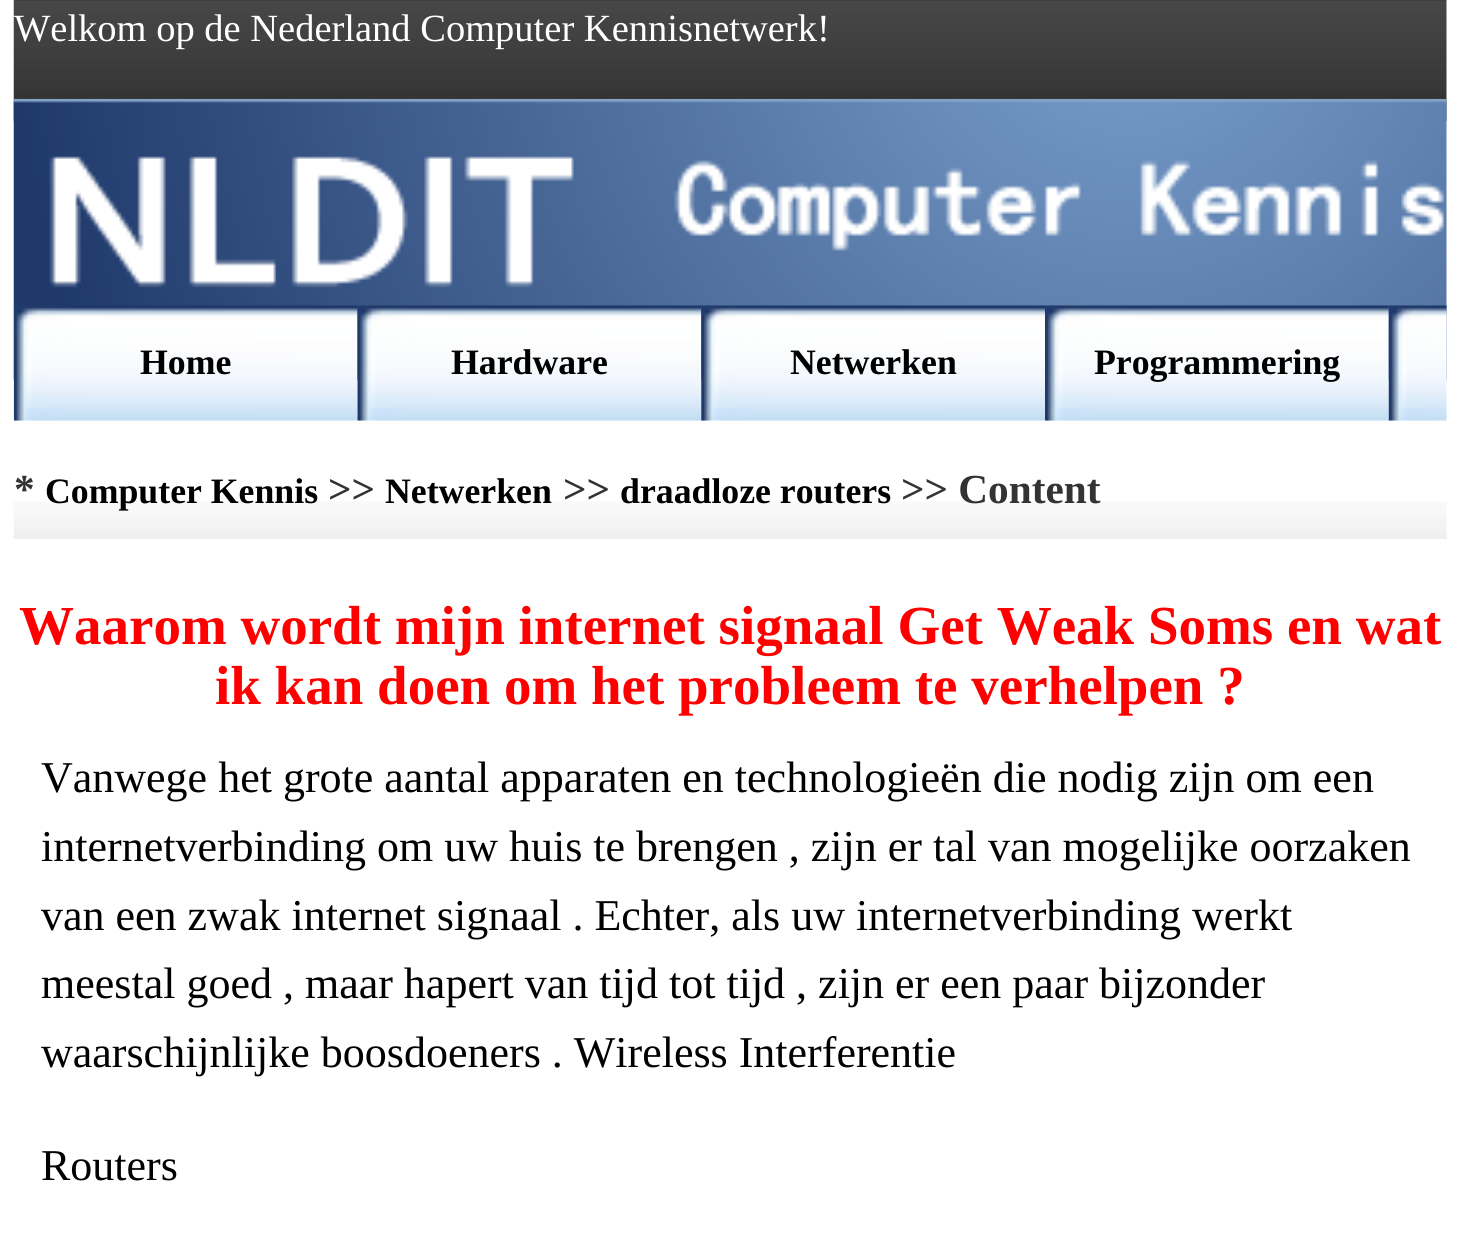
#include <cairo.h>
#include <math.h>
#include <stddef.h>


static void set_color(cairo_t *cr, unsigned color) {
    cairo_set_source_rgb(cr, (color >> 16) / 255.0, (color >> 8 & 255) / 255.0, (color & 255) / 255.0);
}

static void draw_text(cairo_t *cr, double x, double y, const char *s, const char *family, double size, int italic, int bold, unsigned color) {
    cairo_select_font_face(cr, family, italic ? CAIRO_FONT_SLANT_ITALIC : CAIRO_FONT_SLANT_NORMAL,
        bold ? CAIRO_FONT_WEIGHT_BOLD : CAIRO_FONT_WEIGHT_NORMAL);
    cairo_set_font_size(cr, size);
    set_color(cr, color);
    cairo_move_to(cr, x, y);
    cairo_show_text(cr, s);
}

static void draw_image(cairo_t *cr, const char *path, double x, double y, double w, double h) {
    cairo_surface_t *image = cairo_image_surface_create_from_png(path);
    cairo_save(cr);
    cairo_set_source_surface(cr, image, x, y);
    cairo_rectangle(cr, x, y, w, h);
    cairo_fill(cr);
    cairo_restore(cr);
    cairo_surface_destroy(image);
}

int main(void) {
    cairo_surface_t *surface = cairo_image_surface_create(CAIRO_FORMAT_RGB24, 1460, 1241);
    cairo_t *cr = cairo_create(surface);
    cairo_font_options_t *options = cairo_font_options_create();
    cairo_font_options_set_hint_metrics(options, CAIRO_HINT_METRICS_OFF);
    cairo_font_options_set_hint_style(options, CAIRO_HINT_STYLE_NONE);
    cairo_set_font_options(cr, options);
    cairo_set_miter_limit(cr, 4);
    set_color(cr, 0xFFFFFF);
    cairo_paint(cr);
    draw_image(cr, "assets/img1.png", 13, 0, 1434, 121);
    draw_text(cr, 14, 41, "Welkom op de Nederland Computer Kennisnetwerk!", "Liberation Serif", 38.5, 0, 0, 0xFFFFFF);
    draw_image(cr, "assets/img2.png", 13, 99, 1434, 281);
    draw_image(cr, "assets/img3.png", 49, 156, 1396, 132);
    draw_image(cr, "assets/img4.png", 13, 305, 345, 116);
    draw_text(cr, 140, 374, "Home", "Liberation Serif", 35.75, 0, 1, 0x000000);
    draw_image(cr, "assets/img5.png", 357, 305, 345, 116);
    draw_text(cr, 451, 374, "Hardware", "Liberation Serif", 35.75, 0, 1, 0x000000);
    draw_image(cr, "assets/img6.png", 701, 305, 344, 116);
    draw_text(cr, 790, 374, "Netwerken", "Liberation Serif", 35.75, 0, 1, 0x000000);
    draw_image(cr, "assets/img7.png", 1045, 305, 344, 116);
    draw_text(cr, 1094, 374, "Programmering", "Liberation Serif", 35.75, 0, 1, 0x000000);
    draw_image(cr, "assets/img8.png", 1388, 305, 59, 116);
    draw_image(cr, "assets/img9.png", 13, 501, 1434, 38);
    draw_text(cr, 14, 503, "*", "Liberation Serif", 41.25, 0, 1, 0x333333);
    draw_text(cr, 45, 503, "Computer Kennis", "Liberation Serif", 35.75, 0, 1, 0x000000);
    draw_text(cr, 328, 503, ">>", "Liberation Serif", 41.25, 0, 1, 0x333333);
    draw_text(cr, 385, 503, "Netwerken", "Liberation Serif", 35.75, 0, 1, 0x000000);
    draw_text(cr, 563, 503, ">>", "Liberation Serif", 41.25, 0, 1, 0x333333);
    draw_text(cr, 620, 503, "draadloze routers", "Liberation Serif", 35.75, 0, 1, 0x000000);
    draw_text(cr, 901, 503, ">> Content", "Liberation Serif", 41.25, 0, 1, 0x333333);
    draw_text(cr, 19, 644, "Waarom wordt mijn internet signaal Get Weak Soms en wat", "Liberation Serif", 55, 0, 1, 0xFF0000);
    draw_text(cr, 215, 704, "ik kan doen om het probleem te verhelpen ?", "Liberation Serif", 55, 0, 1, 0xFF0000);
    draw_text(cr, 41, 792, "Vanwege het grote aantal apparaten en technologieën die nodig zijn om een", "Liberation Serif", 44, 0, 0, 0x000000);
    draw_text(cr, 41, 861, "internetverbinding om uw huis te brengen , zijn er tal van mogelijke oorzaken", "Liberation Serif", 44, 0, 0, 0x000000);
    draw_text(cr, 41, 930, "van een zwak internet signaal . Echter, als uw internetverbinding werkt", "Liberation Serif", 44, 0, 0, 0x000000);
    draw_text(cr, 41, 998, "meestal goed , maar hapert van tijd tot tijd , zijn er een paar bijzonder", "Liberation Serif", 44, 0, 0, 0x000000);
    draw_text(cr, 41, 1067, "waarschijnlijke boosdoeners . Wireless Interferentie", "Liberation Serif", 44, 0, 0, 0x000000);
    draw_text(cr, 41, 1180, "Routers", "Liberation Serif", 44, 0, 0, 0x000000);
    cairo_surface_write_to_png(surface, "output.png");
    cairo_font_options_destroy(options);
    cairo_destroy(cr);
    cairo_surface_destroy(surface);
    return 0;
}
